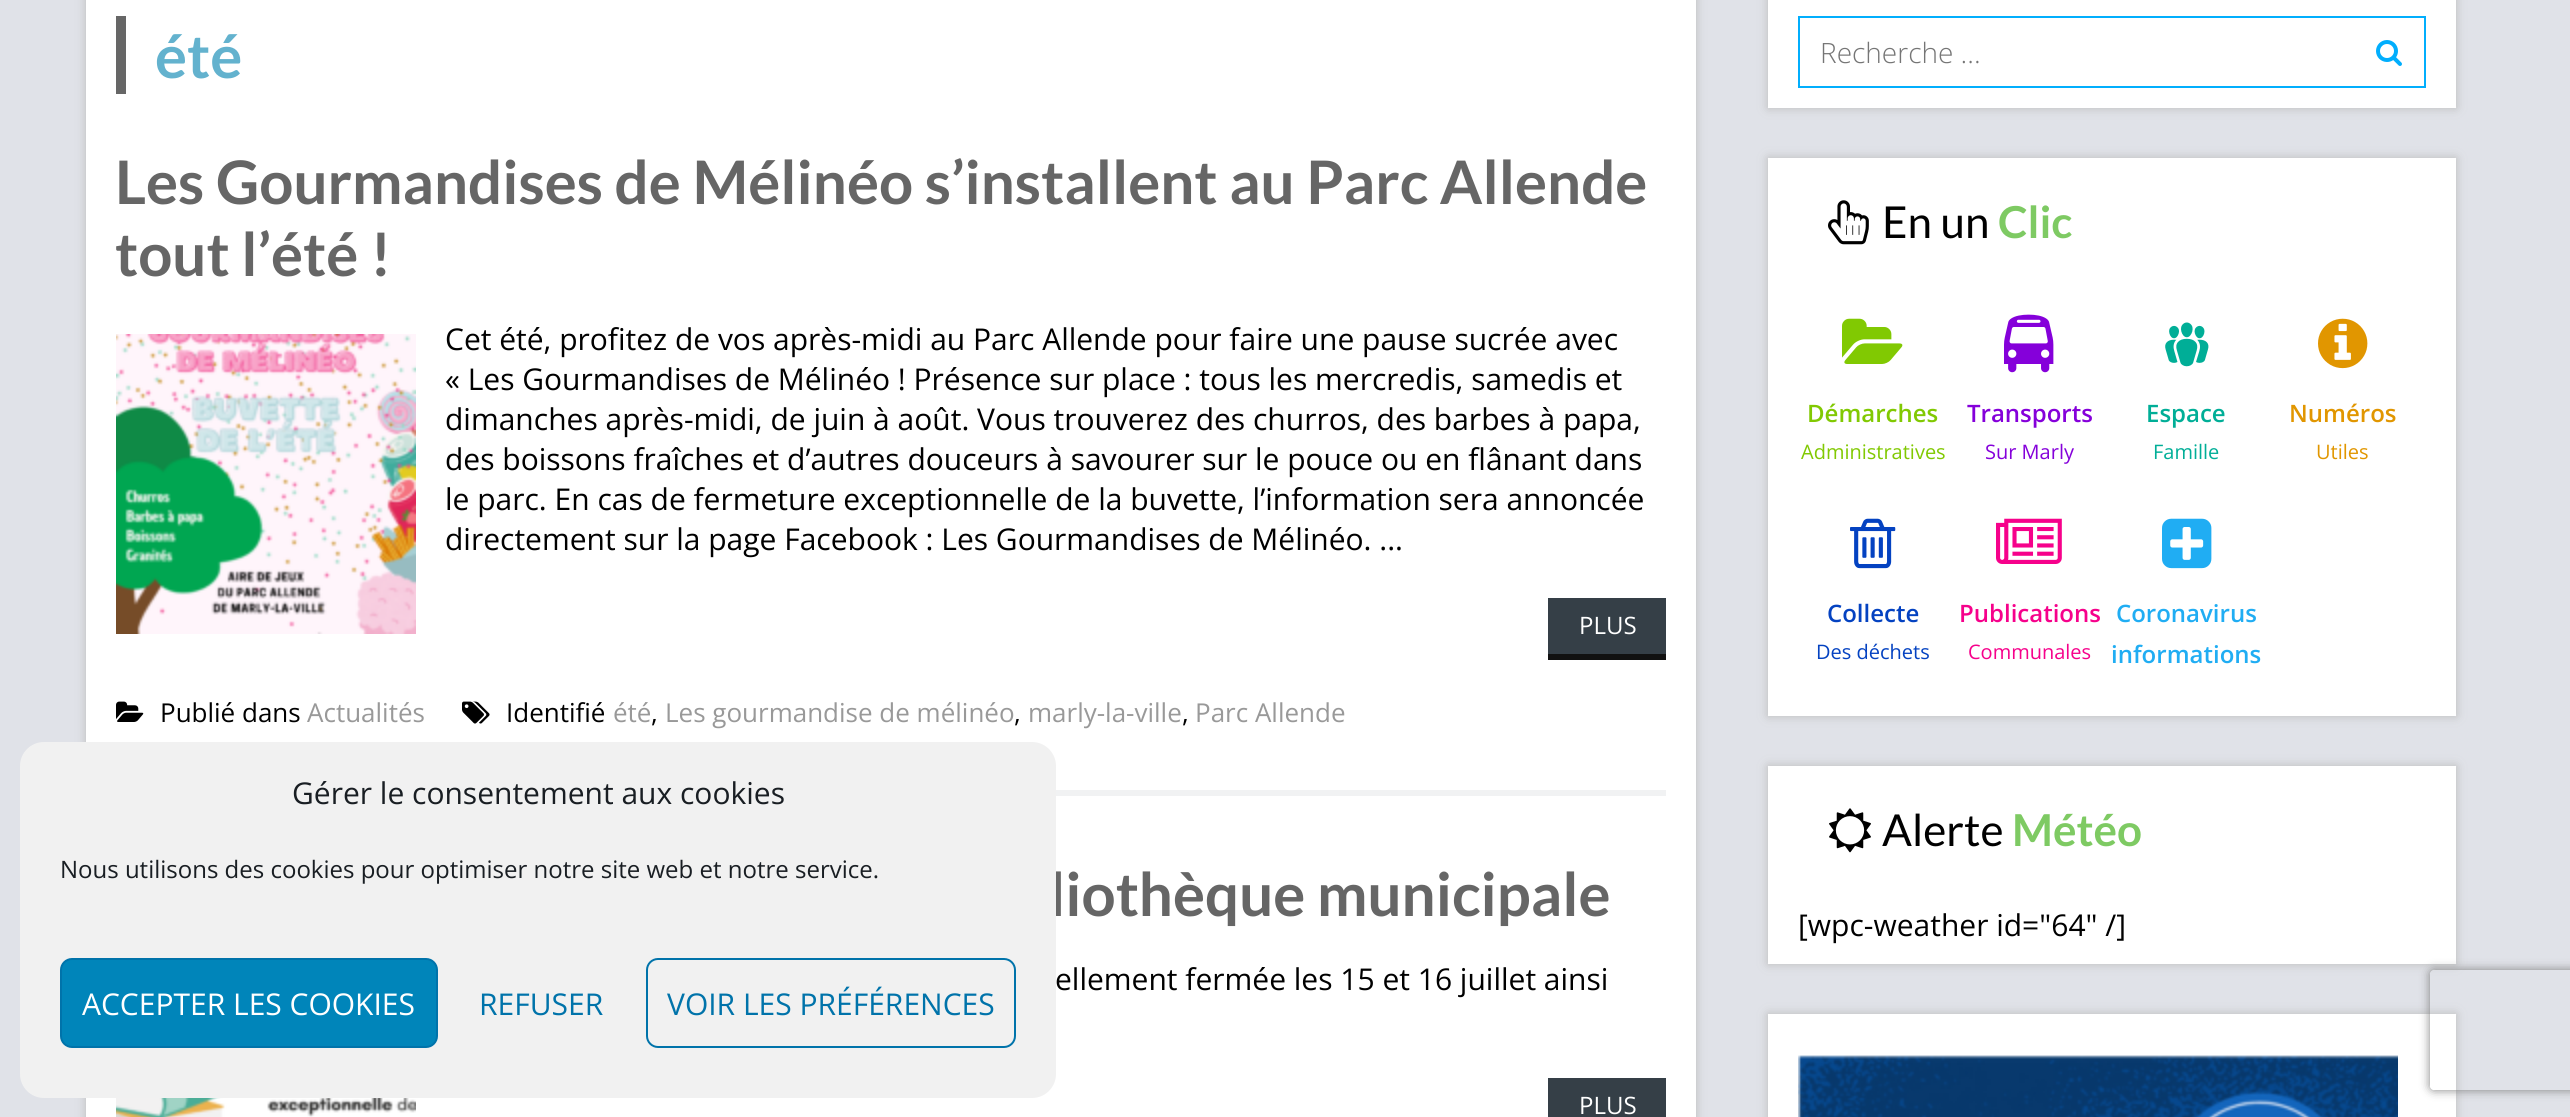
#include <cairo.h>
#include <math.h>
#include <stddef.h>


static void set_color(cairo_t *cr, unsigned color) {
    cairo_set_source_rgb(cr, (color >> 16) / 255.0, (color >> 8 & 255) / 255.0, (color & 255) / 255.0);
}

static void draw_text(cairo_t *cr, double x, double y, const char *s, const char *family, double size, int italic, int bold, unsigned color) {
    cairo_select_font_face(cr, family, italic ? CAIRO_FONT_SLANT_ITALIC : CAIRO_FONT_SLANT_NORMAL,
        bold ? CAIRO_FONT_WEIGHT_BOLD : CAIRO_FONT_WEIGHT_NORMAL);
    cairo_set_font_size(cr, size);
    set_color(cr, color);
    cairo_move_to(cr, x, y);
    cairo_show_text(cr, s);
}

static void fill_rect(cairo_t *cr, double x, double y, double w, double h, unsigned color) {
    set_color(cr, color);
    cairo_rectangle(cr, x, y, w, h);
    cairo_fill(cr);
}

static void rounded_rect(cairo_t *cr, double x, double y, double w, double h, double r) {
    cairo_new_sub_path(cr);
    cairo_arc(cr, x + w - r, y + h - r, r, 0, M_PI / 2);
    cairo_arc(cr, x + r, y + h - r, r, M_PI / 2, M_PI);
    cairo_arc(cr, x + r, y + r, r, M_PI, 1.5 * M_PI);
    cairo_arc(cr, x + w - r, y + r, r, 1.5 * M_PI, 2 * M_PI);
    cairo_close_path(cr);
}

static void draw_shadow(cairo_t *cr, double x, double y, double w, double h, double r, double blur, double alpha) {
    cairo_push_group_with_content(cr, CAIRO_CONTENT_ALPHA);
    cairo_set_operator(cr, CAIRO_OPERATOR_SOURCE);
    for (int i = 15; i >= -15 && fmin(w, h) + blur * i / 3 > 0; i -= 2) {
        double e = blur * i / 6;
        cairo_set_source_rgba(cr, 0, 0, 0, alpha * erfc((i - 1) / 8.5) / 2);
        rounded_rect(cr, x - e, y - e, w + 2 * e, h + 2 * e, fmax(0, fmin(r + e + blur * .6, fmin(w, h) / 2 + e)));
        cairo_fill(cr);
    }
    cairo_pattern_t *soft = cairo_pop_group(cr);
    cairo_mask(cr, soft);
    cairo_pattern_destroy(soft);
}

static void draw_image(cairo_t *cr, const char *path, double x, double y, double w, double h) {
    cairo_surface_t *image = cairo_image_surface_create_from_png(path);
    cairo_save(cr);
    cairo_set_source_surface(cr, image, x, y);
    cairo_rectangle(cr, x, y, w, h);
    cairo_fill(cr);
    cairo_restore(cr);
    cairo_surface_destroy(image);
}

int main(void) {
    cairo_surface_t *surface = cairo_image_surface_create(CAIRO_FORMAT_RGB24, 2570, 1117);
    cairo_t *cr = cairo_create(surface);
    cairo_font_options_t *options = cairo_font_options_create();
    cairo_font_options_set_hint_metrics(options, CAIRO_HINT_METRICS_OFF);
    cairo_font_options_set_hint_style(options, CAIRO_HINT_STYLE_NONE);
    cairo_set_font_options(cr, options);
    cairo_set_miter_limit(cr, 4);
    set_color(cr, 0xE0E2E8);
    cairo_paint(cr);
    set_color(cr, 0xBBBBBB);
    draw_shadow(cr, 86, -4, 1610, 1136, 0, 5, 1);
    fill_rect(cr, 86, 0, 1610, 1117, 0xFFFFFF);
    fill_rect(cr, 116, 16, 10, 78, 0x666666);
    draw_text(cr, 155, 78, "été", "Lato", 60, 0, 1, 0x63B2CE);
    fill_rect(cr, 1056, 790, 610, 6, 0xF1F2F3);
    draw_text(cr, 115, 204, "Les Gourmandises de Mélinéo s’installent au Parc Allende", "Lato", 60, 0, 1, 0x666666);
    draw_text(cr, 115, 276, "tout l’été !", "Lato", 60, 0, 1, 0x666666);
    draw_image(cr, "assets/img1.png", 116, 334, 300, 300);
    draw_text(cr, 445, 350, "Cet été, profitez de vos après-midi au Parc Allende pour faire une pause sucrée avec", "Open Sans", 30, 0, 0, 0x000000);
    draw_text(cr, 445, 390, "« Les Gourmandises de Mélinéo ! Présence sur place : tous les mercredis, samedis et", "Open Sans", 30, 0, 0, 0x000000);
    draw_text(cr, 445, 430, "dimanches après-midi, de juin à août. Vous trouverez des churros, des barbes à papa,", "Open Sans", 30, 0, 0, 0x000000);
    draw_text(cr, 445, 470, "des boissons fraîches et d’autres douceurs à savourer sur le pouce ou en flânant dans", "Open Sans", 30, 0, 0, 0x000000);
    draw_text(cr, 445, 510, "le parc. En cas de fermeture exceptionnelle de la buvette, l’information sera annoncée", "Open Sans", 30, 0, 0, 0x000000);
    draw_text(cr, 445, 550, "directement sur la page Facebook : Les Gourmandises de Mélinéo. ...", "Open Sans", 30, 0, 0, 0x000000);
    fill_rect(cr, 1548, 598, 118, 56, 0x353F47);
    fill_rect(cr, 1548, 654, 118, 6, 0x111111);
    draw_text(cr, 1579, 634, "PLUS", "Open Sans", 24, 0, 0, 0xFFFFFF);
    draw_image(cr, "assets/img2.png", 116, 701, 28, 21);
    draw_text(cr, 160, 722, "Publié dans", "Open Sans", 26, 0, 0, 0x000000);
    draw_text(cr, 307, 722, "Actualités", "Open Sans", 26, 0, 0, 0x999999);
    draw_image(cr, "assets/img3.png", 462, 701, 28, 23);
    draw_text(cr, 506, 722, "Identifié", "Open Sans", 26, 0, 0, 0x000000);
    draw_text(cr, 613, 722, "été", "Open Sans", 26, 0, 0, 0x999999);
    draw_text(cr, 651, 722, ",", "Open Sans", 26, 0, 0, 0x000000);
    draw_text(cr, 665, 722, "Les gourmandise de mélinéo", "Open Sans", 26, 0, 0, 0x999999);
    draw_text(cr, 1014, 722, ",", "Open Sans", 26, 0, 0, 0x000000);
    draw_text(cr, 1028, 722, "marly-la-ville", "Open Sans", 26, 0, 0, 0x999999);
    draw_text(cr, 1182, 722, ",", "Open Sans", 26, 0, 0, 0x000000);
    draw_text(cr, 1195, 722, "Parc Allende", "Open Sans", 26, 0, 0, 0x999999);
    draw_text(cr, 1049, 916, "liothèque municipale", "Lato", 60, 0, 1, 0x666666);
    draw_text(cr, 1055, 990, "ellement fermée les 15 et 16 juillet ainsi", "Open Sans", 30, 0, 0, 0x000000);
    draw_image(cr, "assets/img4.png", 116, 1098, 300, 19);
    fill_rect(cr, 1548, 1078, 118, 39, 0x353F47);
    draw_text(cr, 1579, 1114, "PLUS", "Open Sans", 24, 0, 0, 0xFFFFFF);
    set_color(cr, 0xBBBBBB);
    draw_shadow(cr, 1768, -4, 688, 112, 0, 5, 1);
    fill_rect(cr, 1768, 0, 688, 108, 0xFFFFFF);
    cairo_rectangle(cr, 1799, 17, 626, 70);
    set_color(cr, 0x01AEFD);
    cairo_stroke(cr);
    draw_text(cr, 1820, 63, "Recherche ...", "Open Sans Light", 28, 0, 0, 0x757575);
    draw_image(cr, "assets/img5.png", 2376, 40, 26, 26);
    set_color(cr, 0xBBBBBB);
    draw_shadow(cr, 1768, 158, 688, 558, 0, 5, 1);
    fill_rect(cr, 1768, 158, 688, 558, 0xFFFFFF);
    draw_image(cr, "assets/img6.png", 1828, 200, 41, 45);
    draw_text(cr, 1882, 238, "En un", "Lato", 44, 0, 0, 0x000000);
    draw_text(cr, 1998, 238, "Clic", "Lato", 44, 0, 1, 0x7ECA63);
    draw_image(cr, "assets/img7.png", 1842, 318, 61, 46);
    draw_text(cr, 1807, 422, "Démarches", "Open Sans SemiBold", 24, 0, 0, 0x81C902);
    draw_text(cr, 1801, 459, "Administratives", "Open Sans", 20, 0, 0, 0x81C902);
    draw_image(cr, "assets/img8.png", 2004, 314, 50, 59);
    draw_text(cr, 1967, 422, "Transports", "Open Sans SemiBold", 24, 0, 0, 0x8500DA);
    draw_text(cr, 1985, 459, "Sur Marly", "Open Sans", 20, 0, 0, 0x8500DA);
    draw_image(cr, "assets/img9.png", 2165, 322, 44, 45);
    draw_text(cr, 2146, 422, "Espace", "Open Sans SemiBold", 24, 0, 0, 0x00AE97);
    draw_text(cr, 2153, 459, "Famille", "Open Sans", 20, 0, 0, 0x00AE97);
    draw_image(cr, "assets/img10.png", 2318, 318, 50, 51);
    draw_text(cr, 2289, 422, "Numéros", "Open Sans SemiBold", 24, 0, 0, 0xE19600);
    draw_text(cr, 2316, 459, "Utiles", "Open Sans", 20, 0, 0, 0xE19600);
    draw_image(cr, "assets/img11.png", 1850, 518, 46, 51);
    draw_text(cr, 1827, 622, "Collecte", "Open Sans SemiBold", 24, 0, 0, 0x0442C1);
    draw_text(cr, 1816, 659, "Des déchets", "Open Sans", 20, 0, 0, 0x0442C1);
    draw_image(cr, "assets/img12.png", 1996, 518, 66, 46);
    draw_text(cr, 1959, 622, "Publications", "Open Sans SemiBold", 24, 0, 0, 0xF6018B);
    draw_text(cr, 1968, 659, "Communales", "Open Sans", 20, 0, 0, 0xF6018B);
    draw_image(cr, "assets/img13.png", 2162, 518, 50, 51);
    draw_text(cr, 2116, 622, "Coronavirus", "Open Sans SemiBold", 24, 0, 0, 0x20ADF3);
    draw_text(cr, 2111, 663, "informations", "Open Sans SemiBold", 24, 0, 0, 0x20ADF3);
    set_color(cr, 0xBBBBBB);
    draw_shadow(cr, 1768, 766, 688, 198, 0, 5, 1);
    fill_rect(cr, 1768, 766, 688, 198, 0xFFFFFF);
    draw_image(cr, "assets/img14.png", 1829, 808, 42, 45);
    draw_text(cr, 1882, 846, "Alerte", "Lato", 44, 0, 0, 0x000000);
    draw_text(cr, 2012, 846, "Météo", "Lato", 44, 0, 1, 0x7ECA63);
    draw_text(cr, 1798, 936, "[wpc-weather id=\"64\" /]", "Open Sans", 30, 0, 0, 0x000000);
    set_color(cr, 0xBBBBBB);
    draw_shadow(cr, 1768, 1014, 688, 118, 0, 5, 1);
    fill_rect(cr, 1768, 1014, 688, 103, 0xFFFFFF);
    draw_image(cr, "assets/img15.png", 1798, 1055, 600, 62);
    set_color(cr, 0xF1F1F1);
    rounded_rect(cr, 20, 742, 1036, 356, 24);
    cairo_fill(cr);
    draw_text(cr, 292, 804, "Gérer le consentement aux cookies", "Open Sans", 30, 0, 0, 0x191E23);
    draw_text(cr, 60, 878, "Nous utilisons des cookies pour optimiser notre site web et notre service.", "Open Sans", 24, 0, 0, 0x191E23);
    set_color(cr, 0x0085BA);
    rounded_rect(cr, 61, 959, 376, 88, 11);
    cairo_fill_preserve(cr);
    set_color(cr, 0x0073AA);
    cairo_stroke(cr);
    draw_text(cr, 82, 1015, "ACCEPTER LES COOKIES", "Open Sans", 30, 0, 0, 0xFFFFFF);
    draw_text(cr, 479, 1015, "REFUSER", "Open Sans", 30, 0, 0, 0x0073AA);
    rounded_rect(cr, 647, 959, 368, 88, 11);
    cairo_stroke(cr);
    draw_text(cr, 667, 1015, "VOIR LES PRÉFÉRENCES", "Open Sans", 30, 0, 0, 0x0073AA);
    cairo_save(cr);
    cairo_set_fill_rule(cr, CAIRO_FILL_RULE_EVEN_ODD);
    cairo_new_path(cr);
    cairo_move_to(cr, 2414, 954);
    cairo_line_to(cr, 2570, 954);
    cairo_line_to(cr, 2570, 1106);
    cairo_line_to(cr, 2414, 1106);
    cairo_close_path(cr);
    cairo_move_to(cr, 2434, 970);
    cairo_line_to(cr, 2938, 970);
    cairo_curve_to(cr, 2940, 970, 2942, 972, 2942, 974);
    cairo_line_to(cr, 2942, 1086);
    cairo_curve_to(cr, 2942, 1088, 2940, 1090, 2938, 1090);
    cairo_line_to(cr, 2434, 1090);
    cairo_curve_to(cr, 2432, 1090, 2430, 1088, 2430, 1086);
    cairo_line_to(cr, 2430, 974);
    cairo_curve_to(cr, 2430, 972, 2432, 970, 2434, 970);
    cairo_close_path(cr);
    cairo_clip(cr);
    set_color(cr, 0x808080);
    draw_shadow(cr, 2430, 970, 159, 120, 4, 5, 1);
    cairo_restore(cr);
    cairo_surface_write_to_png(surface, "output.png");
    cairo_font_options_destroy(options);
    cairo_destroy(cr);
    cairo_surface_destroy(surface);
    return 0;
}
